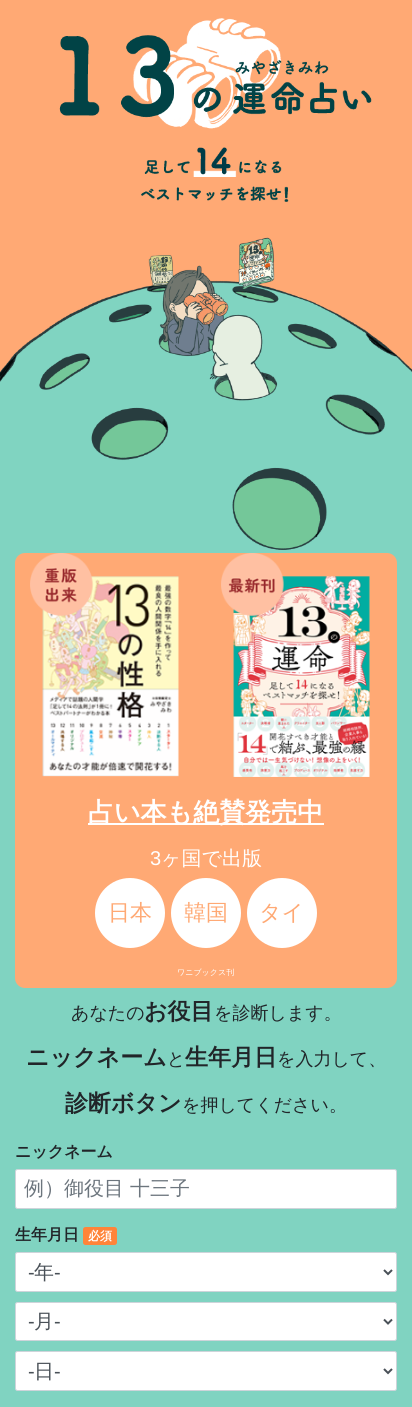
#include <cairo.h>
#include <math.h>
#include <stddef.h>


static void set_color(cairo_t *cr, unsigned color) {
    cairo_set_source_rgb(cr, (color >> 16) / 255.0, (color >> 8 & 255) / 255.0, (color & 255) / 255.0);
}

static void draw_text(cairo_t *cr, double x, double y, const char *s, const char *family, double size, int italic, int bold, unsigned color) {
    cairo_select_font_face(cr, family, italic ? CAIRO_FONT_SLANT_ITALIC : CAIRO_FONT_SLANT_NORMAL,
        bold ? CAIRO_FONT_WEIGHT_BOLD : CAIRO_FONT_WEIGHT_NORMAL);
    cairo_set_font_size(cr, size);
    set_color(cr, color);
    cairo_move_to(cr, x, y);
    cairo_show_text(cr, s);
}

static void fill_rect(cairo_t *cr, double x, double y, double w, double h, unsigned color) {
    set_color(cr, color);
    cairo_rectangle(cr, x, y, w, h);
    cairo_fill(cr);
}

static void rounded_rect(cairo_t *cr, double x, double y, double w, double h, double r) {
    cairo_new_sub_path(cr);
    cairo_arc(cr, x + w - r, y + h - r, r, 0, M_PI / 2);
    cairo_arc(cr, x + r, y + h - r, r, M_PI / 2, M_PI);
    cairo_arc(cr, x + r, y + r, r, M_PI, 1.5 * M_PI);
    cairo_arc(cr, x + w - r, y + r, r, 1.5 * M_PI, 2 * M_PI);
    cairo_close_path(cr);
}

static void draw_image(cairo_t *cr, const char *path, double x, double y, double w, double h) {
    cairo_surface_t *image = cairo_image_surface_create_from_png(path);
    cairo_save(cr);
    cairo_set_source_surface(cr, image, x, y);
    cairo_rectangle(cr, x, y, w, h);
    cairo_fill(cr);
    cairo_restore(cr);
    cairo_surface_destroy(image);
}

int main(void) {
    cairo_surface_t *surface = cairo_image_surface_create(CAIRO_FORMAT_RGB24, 412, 1407);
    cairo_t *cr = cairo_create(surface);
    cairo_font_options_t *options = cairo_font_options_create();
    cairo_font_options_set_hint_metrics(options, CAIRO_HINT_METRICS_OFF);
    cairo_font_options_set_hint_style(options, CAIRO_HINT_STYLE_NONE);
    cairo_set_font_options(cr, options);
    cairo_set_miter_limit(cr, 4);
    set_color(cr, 0x80D3C1);
    cairo_paint(cr);
    fill_rect(cr, 0, 0, 412, 141, 0xFFA974);
    draw_image(cr, "assets/img1.png", 59, 18, 313, 111);
    draw_image(cr, "assets/img2.png", 0, 141, 412, 409);
    rounded_rect(cr, 15, 553, 382, 435, 10);
    cairo_fill(cr);
    draw_image(cr, "assets/img3.png", 30, 553, 149, 224);
    draw_image(cr, "assets/img4.png", 221, 553, 149, 224);
    fill_rect(cr, 88, 823, 236, 2, 0xFFFFFF);
    draw_text(cr, 88, 821, "占い本も絶賛発売中", "WenQuanYi Zen Hei", 26, 0, 1, 0xFFFFFF);
    draw_text(cr, 150, 865, "3", "Liberation Sans", 20, 0, 0, 0xFFFFFF);
    draw_text(cr, 161, 865, "ヶ国で出版", "WenQuanYi Zen Hei Medium", 20, 0, 0, 0xFFFFFF);
    cairo_new_path(cr);
    cairo_arc(cr, 130, 913, 35, 0, 2 * M_PI);
    cairo_fill(cr);
    draw_text(cr, 108, 920, "日本", "WenQuanYi Zen Hei Medium", 22, 0, 0, 0xFFA974);
    set_color(cr, 0xFFFFFF);
    cairo_new_path(cr);
    cairo_arc(cr, 206, 913, 35, 0, 2 * M_PI);
    cairo_fill(cr);
    draw_text(cr, 184, 920, "韓国", "WenQuanYi Zen Hei Medium", 22, 0, 0, 0xFFA974);
    set_color(cr, 0xFFFFFF);
    cairo_new_path(cr);
    cairo_arc(cr, 282, 913, 35, 0, 2 * M_PI);
    cairo_fill(cr);
    draw_text(cr, 259, 920, "タイ", "WenQuanYi Zen Hei Medium", 22, 0, 0, 0xFFA974);
    draw_text(cr, 177, 975, "ワニブックス刊", "WenQuanYi Zen Hei Medium", 8, 0, 0, 0xFFFFFF);
    draw_text(cr, 71, 1019, "あなたの", "WenQuanYi Zen Hei Medium", 18, 0, 0, 0x212529);
    draw_text(cr, 144, 1019, "お役目", "WenQuanYi Zen Hei", 23, 0, 1, 0x212529);
    draw_text(cr, 214, 1019, "を診断します。", "WenQuanYi Zen Hei Medium", 18, 0, 0, 0x212529);
    draw_text(cr, 26, 1065, "ニックネーム", "WenQuanYi Zen Hei", 23, 0, 1, 0x212529);
    draw_text(cr, 167, 1065, "と", "WenQuanYi Zen Hei Medium", 18, 0, 0, 0x212529);
    draw_text(cr, 185, 1065, "生年月日", "WenQuanYi Zen Hei", 23, 0, 1, 0x212529);
    draw_text(cr, 277, 1065, "を入力して、", "WenQuanYi Zen Hei Medium", 18, 0, 0, 0x212529);
    draw_text(cr, 65, 1111, "診断ボタン", "WenQuanYi Zen Hei", 23, 0, 1, 0x212529);
    draw_text(cr, 182, 1111, "を押してください。", "WenQuanYi Zen Hei Medium", 18, 0, 0, 0x212529);
    draw_text(cr, 15, 1157, "ニックネーム", "WenQuanYi Zen Hei", 16, 0, 1, 0x212529);
    set_color(cr, 0xFFFFFF);
    rounded_rect(cr, 15.5, 1169.5, 381, 39, 2);
    cairo_fill_preserve(cr);
    set_color(cr, 0xCED4DA);
    cairo_set_line_width(cr, 1);
    cairo_stroke(cr);
    draw_text(cr, 24, 1195, "例）御役目 十三子", "WenQuanYi Zen Hei Medium", 20, 0, 0, 0x6C757D);
    draw_text(cr, 15, 1240, "生年月日", "WenQuanYi Zen Hei", 16, 0, 1, 0x212529);
    set_color(cr, 0xFF8439);
    rounded_rect(cr, 83, 1227, 34, 18, 2.5);
    cairo_fill(cr);
    draw_text(cr, 88, 1240, "必須", "WenQuanYi Zen Hei", 12, 0, 1, 0xFFFFFF);
    rounded_rect(cr, 15.5, 1252.5, 381, 39, 2);
    cairo_fill_preserve(cr);
    set_color(cr, 0xCED4DA);
    cairo_stroke(cr);
    cairo_new_path(cr);
    cairo_move_to(cr, 384, 1270);
    cairo_line_to(cr, 388, 1274);
    cairo_line_to(cr, 392, 1270);
    set_color(cr, 0x495057);
    cairo_set_line_width(cr, 2);
    cairo_stroke(cr);
    draw_text(cr, 28, 1279, "-", "Liberation Sans", 20, 0, 0, 0x495057);
    draw_text(cr, 34, 1279, "年", "WenQuanYi Zen Hei Medium", 20, 0, 0, 0x495057);
    draw_text(cr, 54, 1279, "-", "Liberation Sans", 20, 0, 0, 0x495057);
    set_color(cr, 0xFFFFFF);
    rounded_rect(cr, 15.5, 1302.5, 381, 38, 2);
    cairo_fill_preserve(cr);
    set_color(cr, 0xCED4DA);
    cairo_set_line_width(cr, 1);
    cairo_stroke(cr);
    cairo_new_path(cr);
    cairo_move_to(cr, 384, 1319.5);
    cairo_line_to(cr, 388, 1323.5);
    cairo_line_to(cr, 392, 1319.5);
    set_color(cr, 0x495057);
    cairo_set_line_width(cr, 2);
    cairo_stroke(cr);
    draw_text(cr, 28, 1328, "-", "Liberation Sans", 20, 0, 0, 0x495057);
    draw_text(cr, 34, 1328, "月", "WenQuanYi Zen Hei Medium", 20, 0, 0, 0x495057);
    draw_text(cr, 54, 1328, "-", "Liberation Sans", 20, 0, 0, 0x495057);
    set_color(cr, 0xFFFFFF);
    rounded_rect(cr, 15.5, 1351.5, 381, 39, 2);
    cairo_fill_preserve(cr);
    set_color(cr, 0xCED4DA);
    cairo_set_line_width(cr, 1);
    cairo_stroke(cr);
    cairo_new_path(cr);
    cairo_move_to(cr, 384, 1369);
    cairo_line_to(cr, 388, 1373);
    cairo_line_to(cr, 392, 1369);
    set_color(cr, 0x495057);
    cairo_set_line_width(cr, 2);
    cairo_stroke(cr);
    draw_text(cr, 28, 1378, "-", "Liberation Sans", 20, 0, 0, 0x495057);
    draw_text(cr, 34, 1378, "日", "WenQuanYi Zen Hei Medium", 20, 0, 0, 0x495057);
    draw_text(cr, 54, 1378, "-", "Liberation Sans", 20, 0, 0, 0x495057);
    cairo_surface_write_to_png(surface, "output.png");
    cairo_font_options_destroy(options);
    cairo_destroy(cr);
    cairo_surface_destroy(surface);
    return 0;
}
